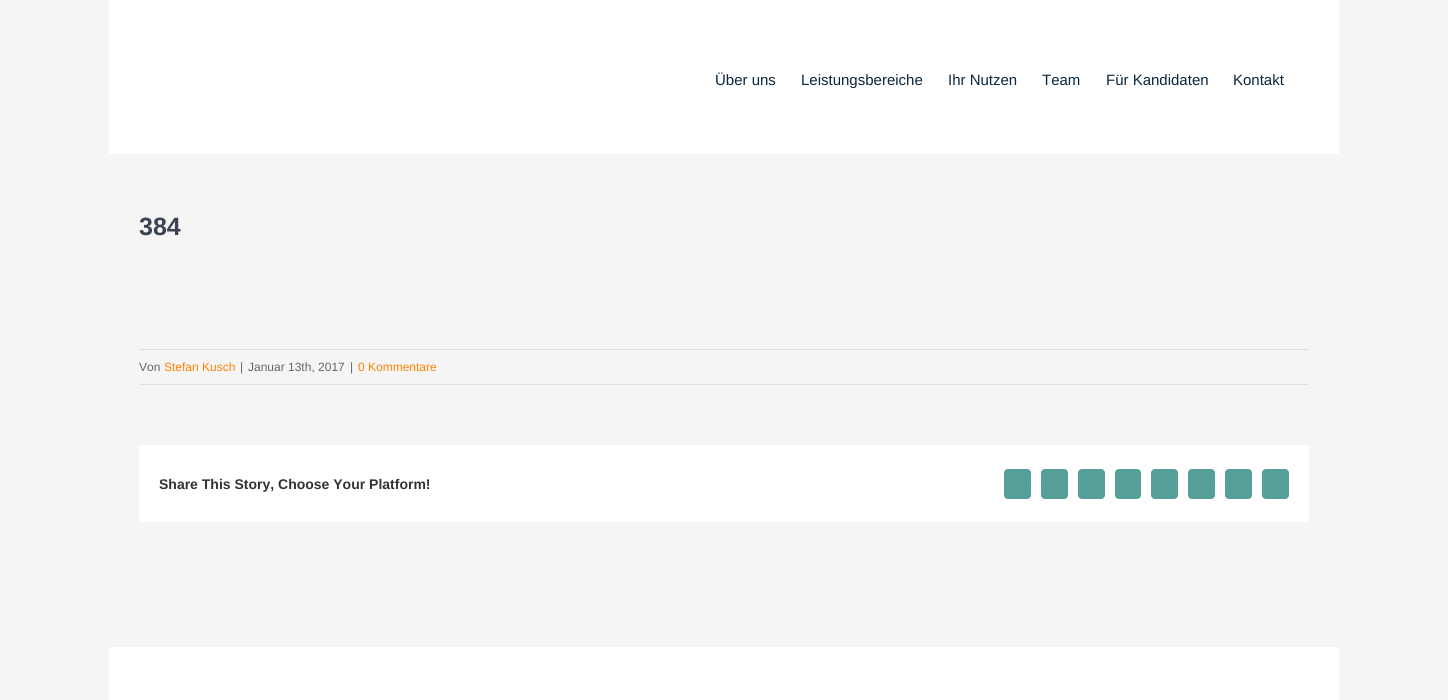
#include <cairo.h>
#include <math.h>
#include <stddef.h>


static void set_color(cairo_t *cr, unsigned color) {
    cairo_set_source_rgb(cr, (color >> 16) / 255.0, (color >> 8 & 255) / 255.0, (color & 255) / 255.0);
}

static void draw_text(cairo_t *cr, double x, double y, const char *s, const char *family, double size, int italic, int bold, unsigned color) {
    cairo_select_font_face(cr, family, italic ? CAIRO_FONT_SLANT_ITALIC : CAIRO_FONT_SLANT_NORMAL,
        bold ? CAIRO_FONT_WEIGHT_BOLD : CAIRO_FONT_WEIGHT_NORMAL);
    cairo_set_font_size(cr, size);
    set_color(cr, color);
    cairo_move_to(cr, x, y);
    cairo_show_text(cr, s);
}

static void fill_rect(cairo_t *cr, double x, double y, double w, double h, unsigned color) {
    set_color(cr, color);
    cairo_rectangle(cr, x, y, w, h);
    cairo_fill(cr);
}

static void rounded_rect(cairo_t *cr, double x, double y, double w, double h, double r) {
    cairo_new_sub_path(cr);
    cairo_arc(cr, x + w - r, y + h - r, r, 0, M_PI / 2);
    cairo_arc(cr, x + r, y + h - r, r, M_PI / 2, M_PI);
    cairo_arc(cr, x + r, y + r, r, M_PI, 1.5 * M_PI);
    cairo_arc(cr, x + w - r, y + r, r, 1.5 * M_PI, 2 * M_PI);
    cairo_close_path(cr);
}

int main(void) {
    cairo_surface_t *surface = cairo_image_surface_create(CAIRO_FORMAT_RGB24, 1448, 700);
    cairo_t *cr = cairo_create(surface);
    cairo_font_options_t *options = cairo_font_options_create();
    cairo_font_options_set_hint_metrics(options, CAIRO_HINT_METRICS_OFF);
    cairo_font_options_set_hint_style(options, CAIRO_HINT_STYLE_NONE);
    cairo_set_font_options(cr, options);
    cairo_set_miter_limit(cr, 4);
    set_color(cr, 0xF5F5F5);
    cairo_paint(cr);
    fill_rect(cr, 109, 0, 1230, 154, 0xFFFFFF);
    draw_text(cr, 715, 85, "Über uns", "Liberation Sans", 15, 0, 0, 0x09263E);
    draw_text(cr, 801, 85, "Leistungsbereiche", "Liberation Sans", 15, 0, 0, 0x09263E);
    draw_text(cr, 948, 85, "Ihr Nutzen", "Liberation Sans", 15, 0, 0, 0x09263E);
    draw_text(cr, 1042, 85, "Team", "Liberation Sans", 15, 0, 0, 0x09263E);
    draw_text(cr, 1106, 85, "Für Kandidaten", "Liberation Sans", 15, 0, 0, 0x09263E);
    draw_text(cr, 1233, 85, "Kontakt", "Liberation Sans", 15, 0, 0, 0x09263E);
    draw_text(cr, 139, 235, "384", "Liberation Sans", 25, 0, 1, 0x3B4251);
    fill_rect(cr, 139, 349, 1170, 1, 0xE0DEDE);
    fill_rect(cr, 139, 384, 1170, 1, 0xE0DEDE);
    draw_text(cr, 139, 371, "Von", "Liberation Sans", 12, 0, 0, 0x666666);
    draw_text(cr, 164, 371, "Stefan Kusch", "Liberation Sans", 12, 0, 0, 0xFF8200);
    draw_text(cr, 240, 371, "|", "Liberation Sans", 12, 0, 0, 0x666666);
    draw_text(cr, 248, 371, "Januar 13th, 2017", "Liberation Sans", 12, 0, 0, 0x666666);
    draw_text(cr, 350, 371, "|", "Liberation Sans", 12, 0, 0, 0x666666);
    draw_text(cr, 358, 371, "0 Kommentare", "Liberation Sans", 12, 0, 0, 0xFF8200);
    fill_rect(cr, 139, 445, 1170, 77, 0xFFFFFF);
    draw_text(cr, 159, 489, "Share This Story, Choose Your Platform!", "Liberation Sans", 14, 0, 1, 0x333333);
    set_color(cr, 0x549F97);
    rounded_rect(cr, 1004.5, 469.5, 26, 29, 3.5);
    cairo_fill_preserve(cr);
    cairo_set_line_width(cr, 1);
    cairo_stroke(cr);
    rounded_rect(cr, 1041.5, 469.5, 26, 29, 3.5);
    cairo_fill_preserve(cr);
    cairo_stroke(cr);
    rounded_rect(cr, 1078.5, 469.5, 26, 29, 3.5);
    cairo_fill_preserve(cr);
    cairo_stroke(cr);
    rounded_rect(cr, 1115.5, 469.5, 25, 29, 3.5);
    cairo_fill_preserve(cr);
    cairo_stroke(cr);
    rounded_rect(cr, 1151.5, 469.5, 26, 29, 3.5);
    cairo_fill_preserve(cr);
    cairo_stroke(cr);
    rounded_rect(cr, 1188.5, 469.5, 26, 29, 3.5);
    cairo_fill_preserve(cr);
    cairo_stroke(cr);
    rounded_rect(cr, 1225.5, 469.5, 26, 29, 3.5);
    cairo_fill_preserve(cr);
    cairo_stroke(cr);
    rounded_rect(cr, 1262.5, 469.5, 26, 29, 3.5);
    cairo_fill_preserve(cr);
    cairo_stroke(cr);
    fill_rect(cr, 109, 647, 1230, 53, 0xFFFFFF);
    cairo_surface_write_to_png(surface, "output.png");
    cairo_font_options_destroy(options);
    cairo_destroy(cr);
    cairo_surface_destroy(surface);
    return 0;
}
